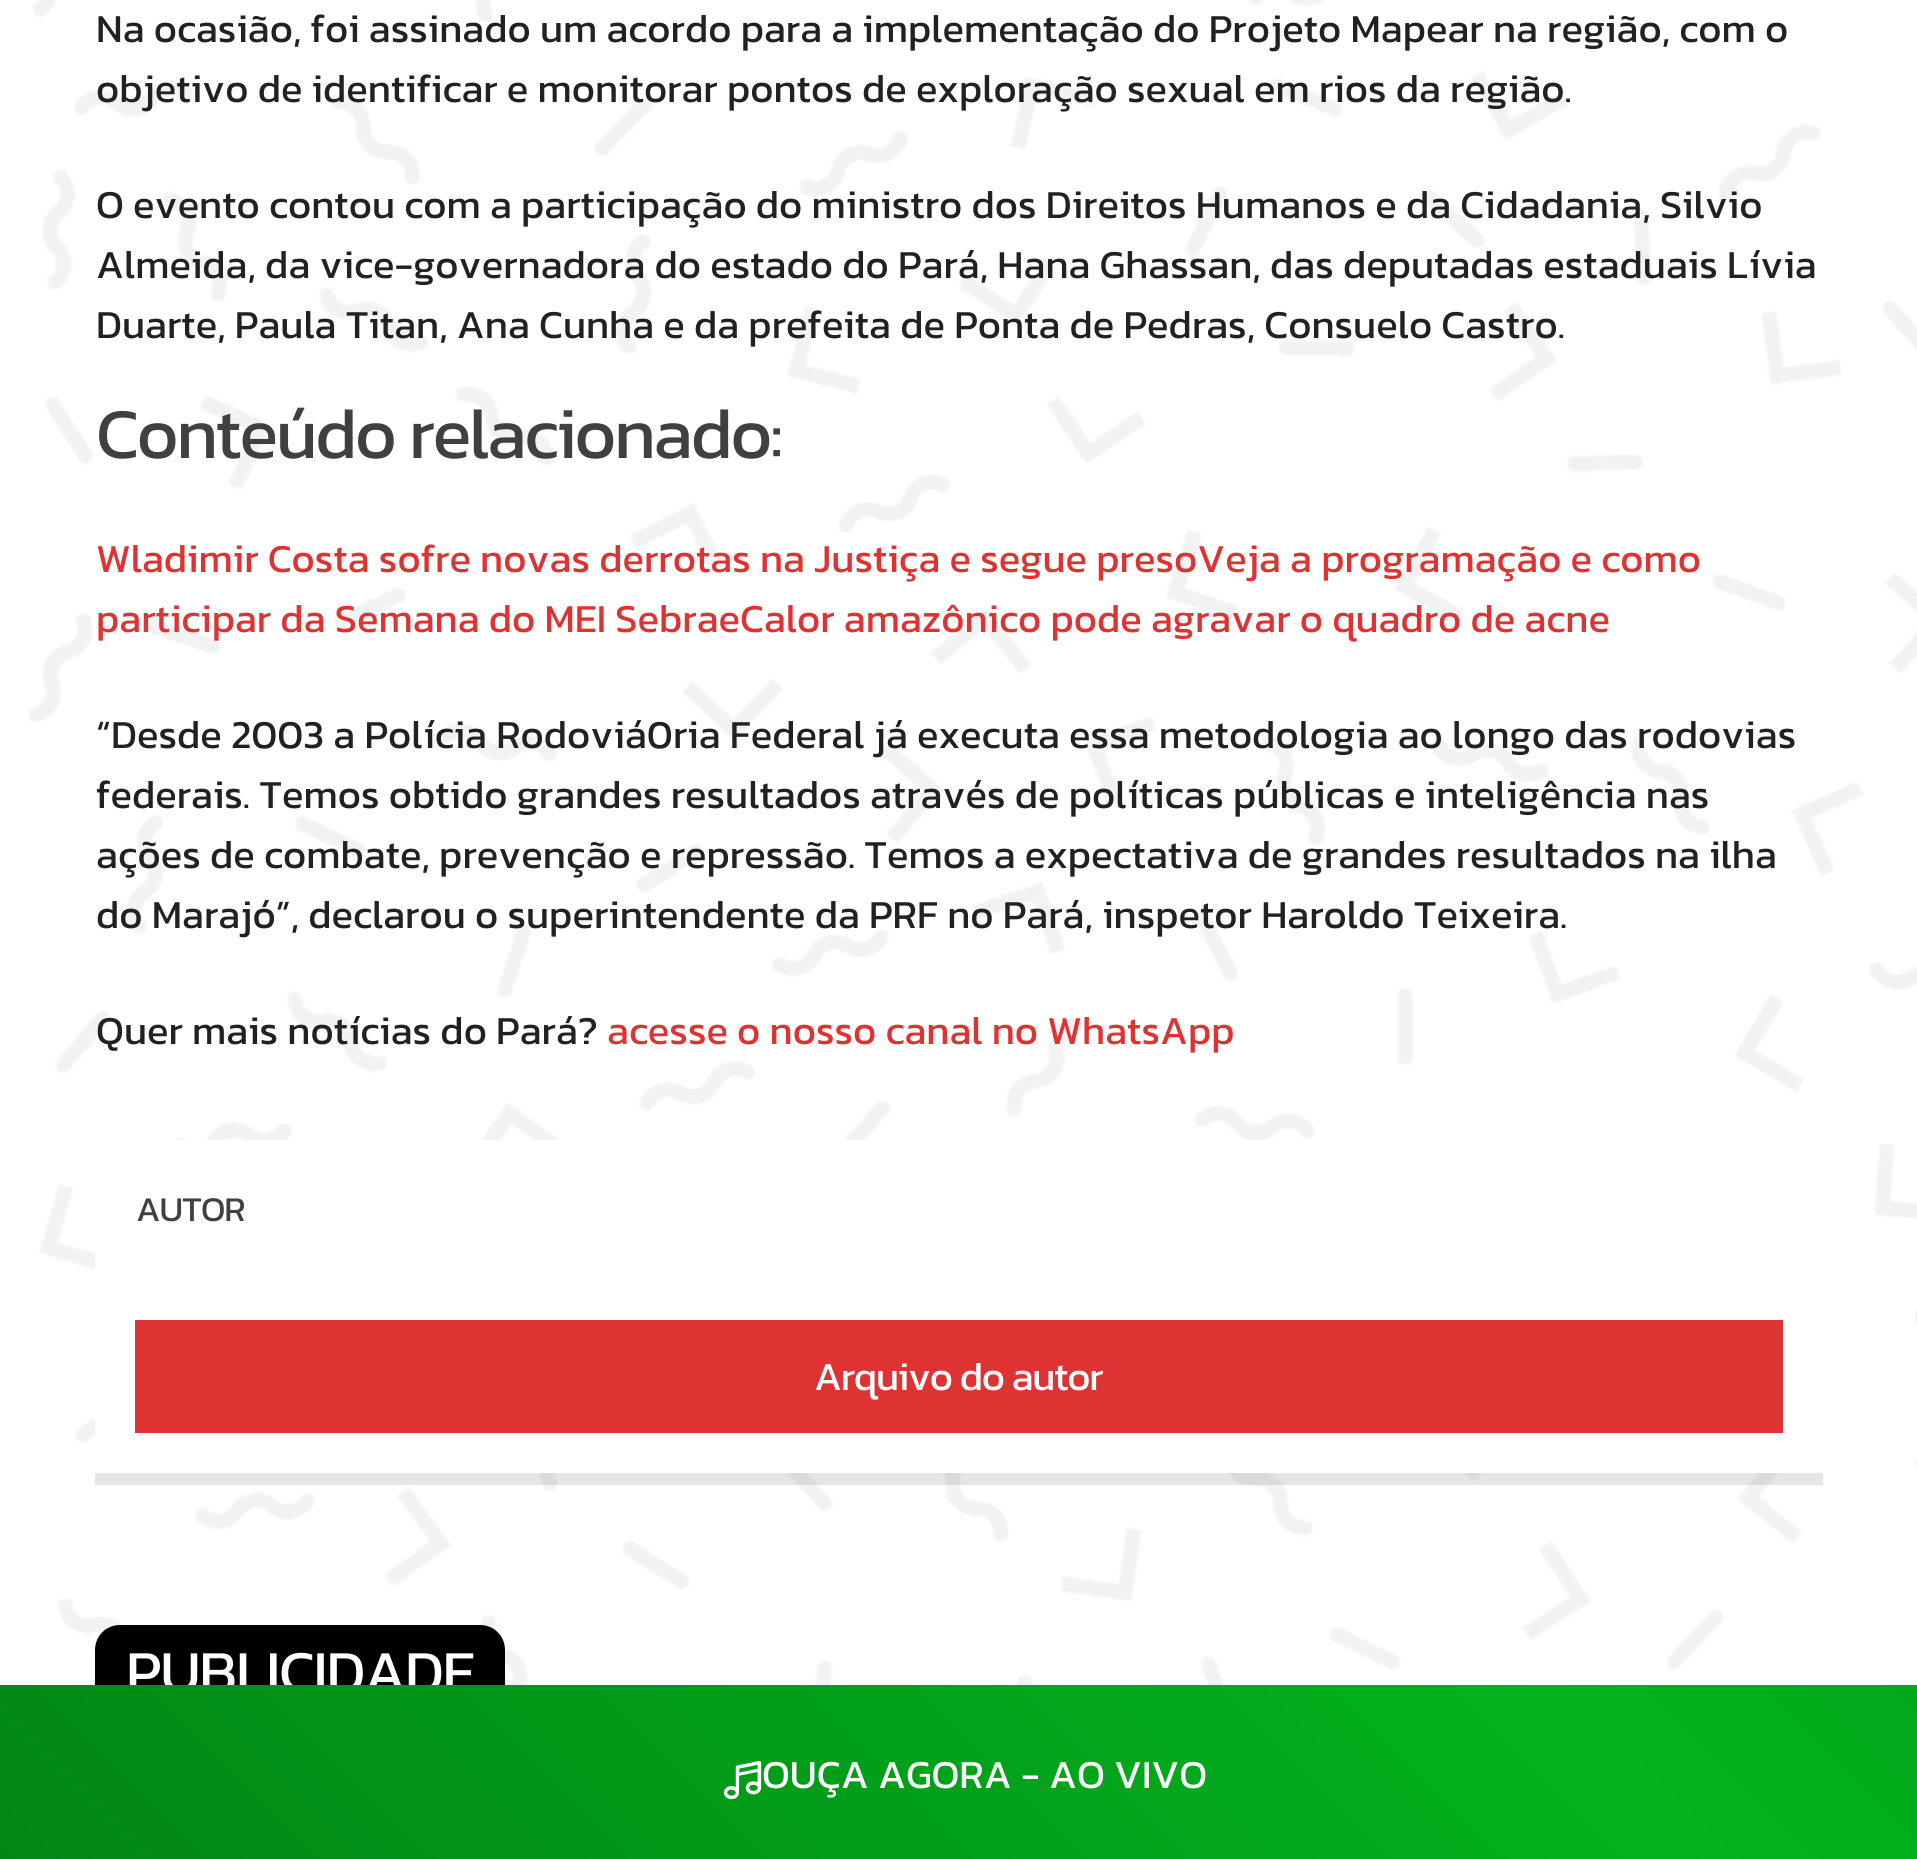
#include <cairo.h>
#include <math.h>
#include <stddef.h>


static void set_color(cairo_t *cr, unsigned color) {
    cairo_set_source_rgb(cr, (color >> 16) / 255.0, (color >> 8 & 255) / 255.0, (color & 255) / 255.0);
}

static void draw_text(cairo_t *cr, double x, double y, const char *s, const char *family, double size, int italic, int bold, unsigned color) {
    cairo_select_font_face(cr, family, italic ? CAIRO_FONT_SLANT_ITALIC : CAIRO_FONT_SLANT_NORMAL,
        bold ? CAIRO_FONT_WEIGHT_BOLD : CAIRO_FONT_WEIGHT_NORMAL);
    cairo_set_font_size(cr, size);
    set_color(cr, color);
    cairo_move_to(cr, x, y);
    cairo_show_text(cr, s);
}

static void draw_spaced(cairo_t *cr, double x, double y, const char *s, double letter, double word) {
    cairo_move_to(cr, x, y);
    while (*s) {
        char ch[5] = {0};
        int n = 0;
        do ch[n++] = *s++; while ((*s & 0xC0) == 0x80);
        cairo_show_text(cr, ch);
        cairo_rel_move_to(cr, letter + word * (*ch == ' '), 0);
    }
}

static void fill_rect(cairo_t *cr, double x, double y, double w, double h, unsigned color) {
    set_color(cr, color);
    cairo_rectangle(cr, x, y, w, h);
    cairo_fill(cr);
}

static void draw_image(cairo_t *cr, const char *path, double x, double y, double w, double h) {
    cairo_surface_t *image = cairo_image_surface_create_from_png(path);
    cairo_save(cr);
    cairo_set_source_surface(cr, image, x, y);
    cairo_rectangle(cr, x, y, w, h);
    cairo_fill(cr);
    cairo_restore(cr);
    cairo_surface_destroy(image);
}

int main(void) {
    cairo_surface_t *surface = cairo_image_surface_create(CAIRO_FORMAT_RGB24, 1917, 1859);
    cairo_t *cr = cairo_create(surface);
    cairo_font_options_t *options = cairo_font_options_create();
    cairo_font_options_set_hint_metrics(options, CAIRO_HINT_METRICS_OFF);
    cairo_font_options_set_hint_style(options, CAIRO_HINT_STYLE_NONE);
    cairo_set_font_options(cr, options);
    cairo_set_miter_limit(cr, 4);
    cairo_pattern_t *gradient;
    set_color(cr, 0xFFFFFF);
    cairo_paint(cr);
    draw_image(cr, "assets/img1.png", 28, 0, 1889, 1685);
    draw_text(cr, 96, 42, "Na ocasião, foi assinado um acordo para a implementação do Projeto Mapear na região, com o", "Kanit", 40, 0, 0, 0x212121);
    draw_text(cr, 96, 102, "objetivo de identificar e monitorar pontos de exploração sexual em rios da região.", "Kanit", 40, 0, 0, 0x212121);
    draw_text(cr, 96, 218, "O evento contou com a participação do ministro dos Direitos Humanos e da Cidadania, Silvio", "Kanit", 40, 0, 0, 0x212121);
    draw_text(cr, 96, 278, "Almeida, da vice-governadora do estado do Pará, Hana Ghassan, das deputadas estaduais Lívia", "Kanit", 40, 0, 0, 0x212121);
    draw_text(cr, 96, 338, "Duarte, Paula Titan, Ana Cunha e da prefeita de Ponta de Pedras, Consuelo Castro.", "Kanit", 40, 0, 0, 0x212121);
    cairo_set_font_size(cr, 72);
    set_color(cr, 0x404040);
    draw_spaced(cr, 96, 458, "Conteúdo relacionado:", -2.2, 0);
    draw_text(cr, 96, 572, "Wladimir Costa sofre novas derrotas na Justiça e segue presoVeja a programação e como", "Kanit", 40, 0, 0, 0xDD3333);
    draw_text(cr, 96, 632, "participar da Semana do MEI SebraeCalor amazônico pode agravar o quadro de acne", "Kanit", 40, 0, 0, 0xDD3333);
    draw_text(cr, 96, 748, "“Desde 2003 a Polícia Rodoviá0ria Federal já executa essa metodologia ao longo das rodovias", "Kanit", 40, 0, 0, 0x212121);
    draw_text(cr, 96, 808, "federais. Temos obtido grandes resultados através de políticas públicas e inteligência nas", "Kanit", 40, 0, 0, 0x212121);
    draw_text(cr, 96, 868, "ações de combate, prevenção e repressão. Temos a expectativa de grandes resultados na ilha", "Kanit", 40, 0, 0, 0x212121);
    draw_text(cr, 96, 928, "do Marajó”, declarou o superintendente da PRF no Pará, inspetor Haroldo Teixeira.", "Kanit", 40, 0, 0, 0x212121);
    draw_text(cr, 96, 1044, "Quer mais notícias do Pará?", "Kanit", 40, 0, 0, 0x212121);
    draw_text(cr, 607, 1044, "acesse o nosso canal no WhatsApp", "Kanit", 40, 0, 0, 0xDD3333);
    cairo_set_source_rgba(cr, 0, 0, 0, 0.1);
    cairo_new_path(cr);
    cairo_move_to(cr, 95, 1472);
    cairo_line_to(cr, 95, 1485);
    cairo_line_to(cr, 1823, 1485);
    cairo_line_to(cr, 1823, 1153);
    cairo_line_to(cr, 1822, 1153);
    cairo_line_to(cr, 1822, 1472);
    cairo_close_path(cr);
    cairo_fill(cr);
    fill_rect(cr, 95, 1140, 1728, 333, 0xFFFFFF);
    cairo_set_font_size(cr, 35);
    set_color(cr, 0x404040);
    draw_spaced(cr, 136, 1221, "AUTOR", -1, 0);
    fill_rect(cr, 135, 1320, 1648, 113, 0xDD3333);
    cairo_set_font_size(cr, 40);
    set_color(cr, 0xFFFFFF);
    draw_spaced(cr, 814, 1390, "Arquivo do autor", -1.25, 0);
    set_color(cr, 0x000000);
    cairo_new_path(cr);
    cairo_move_to(cr, 120, 1625);
    cairo_line_to(cr, 480, 1625);
    cairo_curve_to(cr, 494, 1625, 505, 1636, 505, 1650);
    cairo_line_to(cr, 505, 1712.5);
    cairo_curve_to(cr, 505, 1714, 504, 1715, 502.5, 1715);
    cairo_line_to(cr, 97.5, 1715);
    cairo_curve_to(cr, 96, 1715, 95, 1714, 95, 1712.5);
    cairo_line_to(cr, 95, 1650);
    cairo_curve_to(cr, 95, 1636, 106, 1625, 120, 1625);
    cairo_close_path(cr);
    cairo_fill(cr);
    cairo_set_font_size(cr, 60);
    set_color(cr, 0xFFFFFF);
    draw_spaced(cr, 126, 1692, "PUBLICIDADE", -1.25, 0);
    gradient = cairo_pattern_create_linear(1307, 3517, 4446, 378);
    cairo_pattern_add_color_stop_rgba(gradient, 0, 0, 0.49, 0.075, 1);
    cairo_pattern_add_color_stop_rgba(gradient, 0.33, 0.008, 0.702, 0.114, 1);
    cairo_pattern_add_color_stop_rgba(gradient, 0.67, 0, 0.49, 0.075, 1);
    cairo_pattern_add_color_stop_rgba(gradient, 1, 0.008, 0.702, 0.114, 1);
    cairo_set_source(cr, gradient);
    cairo_pattern_destroy(gradient);
    cairo_rectangle(cr, 0, 1685, 1917, 174);
    cairo_fill(cr);
    draw_image(cr, "assets/img2.png", 723, 1761, 39, 39);
    draw_text(cr, 762, 1788, "OUÇA AGORA - AO VIVO", "Kanit", 40, 0, 0, 0xFFFFFF);
    cairo_surface_write_to_png(surface, "output.png");
    cairo_font_options_destroy(options);
    cairo_destroy(cr);
    cairo_surface_destroy(surface);
    return 0;
}
